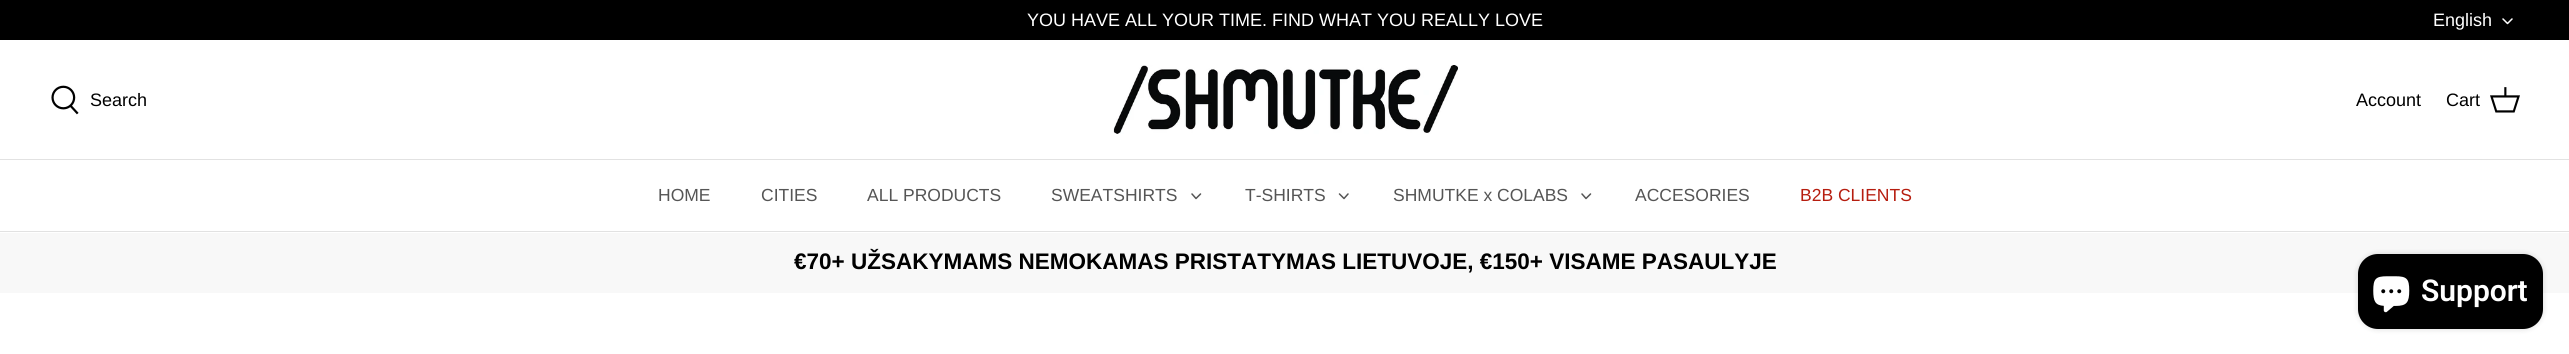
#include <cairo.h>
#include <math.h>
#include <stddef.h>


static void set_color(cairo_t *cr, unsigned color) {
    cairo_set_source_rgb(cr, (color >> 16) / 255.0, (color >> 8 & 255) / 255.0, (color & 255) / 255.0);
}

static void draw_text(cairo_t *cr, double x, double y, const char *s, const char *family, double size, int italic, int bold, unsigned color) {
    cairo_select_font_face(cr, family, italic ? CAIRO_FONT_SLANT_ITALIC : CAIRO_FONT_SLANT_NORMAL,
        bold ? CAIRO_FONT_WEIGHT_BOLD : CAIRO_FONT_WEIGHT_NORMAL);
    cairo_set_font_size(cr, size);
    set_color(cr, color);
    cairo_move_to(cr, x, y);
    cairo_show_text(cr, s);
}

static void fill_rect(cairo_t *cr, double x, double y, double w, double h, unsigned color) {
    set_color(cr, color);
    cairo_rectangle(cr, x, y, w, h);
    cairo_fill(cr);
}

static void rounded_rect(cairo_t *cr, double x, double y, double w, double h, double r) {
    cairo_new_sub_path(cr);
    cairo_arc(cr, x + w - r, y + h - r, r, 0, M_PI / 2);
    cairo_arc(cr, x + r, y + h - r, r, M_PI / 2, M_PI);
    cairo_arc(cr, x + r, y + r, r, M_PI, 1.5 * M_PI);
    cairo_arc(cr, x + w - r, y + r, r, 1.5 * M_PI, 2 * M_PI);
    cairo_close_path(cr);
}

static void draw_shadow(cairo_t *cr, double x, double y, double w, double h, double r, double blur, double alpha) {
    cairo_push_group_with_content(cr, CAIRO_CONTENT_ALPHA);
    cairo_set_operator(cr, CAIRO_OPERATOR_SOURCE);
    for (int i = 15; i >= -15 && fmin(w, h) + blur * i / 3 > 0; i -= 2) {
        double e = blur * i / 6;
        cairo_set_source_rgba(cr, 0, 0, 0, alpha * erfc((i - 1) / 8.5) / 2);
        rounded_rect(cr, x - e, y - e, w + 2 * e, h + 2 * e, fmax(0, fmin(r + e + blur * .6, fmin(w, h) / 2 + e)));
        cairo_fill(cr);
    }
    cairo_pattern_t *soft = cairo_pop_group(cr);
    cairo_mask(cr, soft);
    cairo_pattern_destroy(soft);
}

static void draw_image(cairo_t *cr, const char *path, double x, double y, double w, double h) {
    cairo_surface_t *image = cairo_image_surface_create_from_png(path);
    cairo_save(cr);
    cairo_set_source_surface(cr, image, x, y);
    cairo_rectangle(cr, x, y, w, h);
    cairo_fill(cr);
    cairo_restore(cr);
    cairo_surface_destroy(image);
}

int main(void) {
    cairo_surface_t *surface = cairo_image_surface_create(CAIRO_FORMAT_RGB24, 2569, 354);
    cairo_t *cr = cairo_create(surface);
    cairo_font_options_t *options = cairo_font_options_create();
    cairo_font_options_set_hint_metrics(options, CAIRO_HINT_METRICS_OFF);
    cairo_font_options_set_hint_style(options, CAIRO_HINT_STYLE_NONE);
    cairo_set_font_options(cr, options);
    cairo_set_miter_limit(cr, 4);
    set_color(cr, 0xFFFFFF);
    cairo_paint(cr);
    fill_rect(cr, 0, 0, 2569, 40, 0x000000);
    draw_text(cr, 1027, 26, "YOU HAVE ALL YOUR TIME. FIND WHAT YOU REALLY LOVE", "Liberation Sans", 18, 0, 0, 0xFFFFFF);
    draw_text(cr, 2433, 26, "English", "Liberation Sans", 18, 0, 0, 0xFFFFFF);
    cairo_new_path(cr);
    cairo_move_to(cr, 2503, 19);
    cairo_line_to(cr, 2507.5, 23.5);
    cairo_line_to(cr, 2512, 19);
    cairo_set_line_width(cr, 1.5);
    cairo_set_line_cap(cr, CAIRO_LINE_CAP_ROUND);
    cairo_set_line_join(cr, CAIRO_LINE_JOIN_ROUND);
    cairo_stroke(cr);
    fill_rect(cr, 0, 159, 2569, 1, 0xE2E2E2);
    draw_image(cr, "assets/img1.png", 51, 85, 28, 30);
    draw_text(cr, 90, 106, "Search", "Liberation Sans", 18, 0, 0, 0x000000);
    draw_image(cr, "assets/img2.png", 1113, 65, 345, 69);
    draw_text(cr, 2356, 106, "Account", "Liberation Sans", 18, 0, 0, 0x000000);
    draw_text(cr, 2446, 106, "Cart", "Liberation Sans", 18, 0, 0, 0x000000);
    draw_image(cr, "assets/img3.png", 2490, 87, 30, 26);
    fill_rect(cr, 0, 231, 2569, 1, 0xE2E2E2);
    draw_text(cr, 658, 201, "HOME", "Liberation Sans", 17.5, 0, 0, 0x555555);
    draw_text(cr, 761, 201, "CITIES", "Liberation Sans", 17.5, 0, 0, 0x555555);
    draw_text(cr, 867, 201, "ALL PRODUCTS", "Liberation Sans", 17.5, 0, 0, 0x555555);
    draw_text(cr, 1051, 201, "SWEATSHIRTS", "Liberation Sans", 17.5, 0, 0, 0x555555);
    cairo_new_path(cr);
    cairo_move_to(cr, 1192, 194);
    cairo_line_to(cr, 1196, 198.5);
    cairo_line_to(cr, 1200.5, 194);
    cairo_stroke(cr);
    draw_text(cr, 1245, 201, "T-SHIRTS", "Liberation Sans", 17.5, 0, 0, 0x555555);
    cairo_new_path(cr);
    cairo_move_to(cr, 1339.5, 194);
    cairo_line_to(cr, 1344, 198.5);
    cairo_line_to(cr, 1348, 194);
    cairo_stroke(cr);
    draw_text(cr, 1393, 201, "SHMUTKE x COLABS", "Liberation Sans", 17.5, 0, 0, 0x555555);
    cairo_new_path(cr);
    cairo_move_to(cr, 1582, 194);
    cairo_line_to(cr, 1586, 198.5);
    cairo_line_to(cr, 1590.5, 194);
    cairo_stroke(cr);
    draw_text(cr, 1635, 201, "ACCESORIES", "Liberation Sans", 17.5, 0, 0, 0x555555);
    draw_text(cr, 1800, 201, "B2B CLIENTS", "Liberation Sans", 17.5, 0, 0, 0xB61D0F);
    fill_rect(cr, 0, 233, 2569, 60, 0xF8F8F8);
    draw_text(cr, 794, 269, "€70+ UŽSAKYMAMS NEMOKAMAS PRISTATYMAS LIETUVOJE, €150+ VISAME PASAULYJE", "Liberation Sans", 22.5, 0, 1, 0x000000);
    set_color(cr, 0x000000);
    draw_shadow(cr, 2358, 254, 185, 75, 20, 3, 0.15);
    set_color(cr, 0x000000);
    rounded_rect(cr, 2358, 254, 185, 75, 20);
    cairo_fill(cr);
    draw_image(cr, "assets/img4.png", 2373, 276, 37, 37);
    draw_text(cr, 2421, 301, "Support", "Roboto SemiBold", 30, 0, 0, 0xFFFFFF);
    cairo_surface_write_to_png(surface, "output.png");
    cairo_font_options_destroy(options);
    cairo_destroy(cr);
    cairo_surface_destroy(surface);
    return 0;
}
